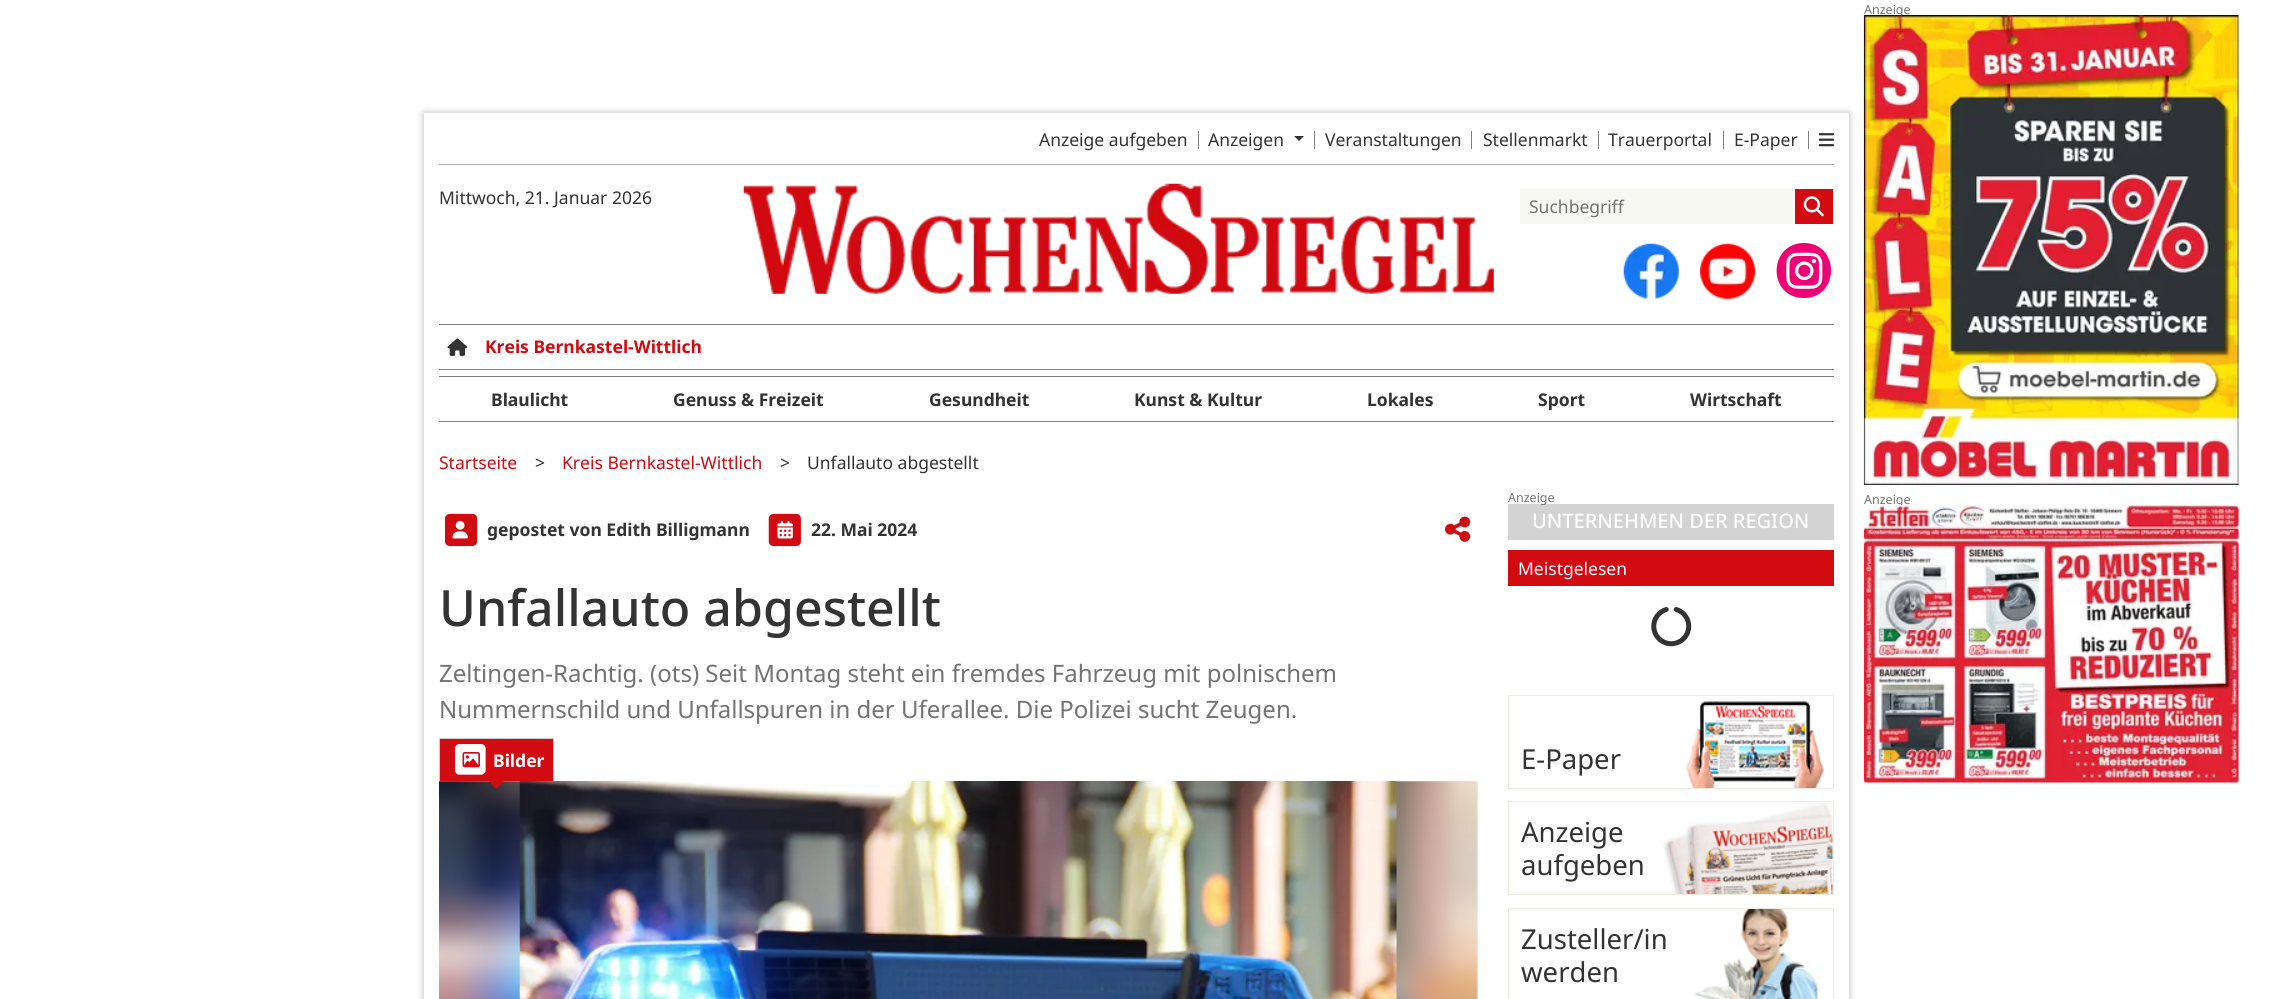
#include <cairo.h>
#include <math.h>
#include <stddef.h>


static void set_color(cairo_t *cr, unsigned color) {
    cairo_set_source_rgb(cr, (color >> 16) / 255.0, (color >> 8 & 255) / 255.0, (color & 255) / 255.0);
}

static void draw_text(cairo_t *cr, double x, double y, const char *s, const char *family, double size, int italic, int bold, unsigned color) {
    cairo_select_font_face(cr, family, italic ? CAIRO_FONT_SLANT_ITALIC : CAIRO_FONT_SLANT_NORMAL,
        bold ? CAIRO_FONT_WEIGHT_BOLD : CAIRO_FONT_WEIGHT_NORMAL);
    cairo_set_font_size(cr, size);
    set_color(cr, color);
    cairo_move_to(cr, x, y);
    cairo_show_text(cr, s);
}

static void fill_rect(cairo_t *cr, double x, double y, double w, double h, unsigned color) {
    set_color(cr, color);
    cairo_rectangle(cr, x, y, w, h);
    cairo_fill(cr);
}

static void rounded_rect(cairo_t *cr, double x, double y, double w, double h, double r) {
    cairo_new_sub_path(cr);
    cairo_arc(cr, x + w - r, y + h - r, r, 0, M_PI / 2);
    cairo_arc(cr, x + r, y + h - r, r, M_PI / 2, M_PI);
    cairo_arc(cr, x + r, y + r, r, M_PI, 1.5 * M_PI);
    cairo_arc(cr, x + w - r, y + r, r, 1.5 * M_PI, 2 * M_PI);
    cairo_close_path(cr);
}

static void draw_shadow(cairo_t *cr, double x, double y, double w, double h, double r, double blur, double alpha) {
    cairo_push_group_with_content(cr, CAIRO_CONTENT_ALPHA);
    cairo_set_operator(cr, CAIRO_OPERATOR_SOURCE);
    for (int i = 15; i >= -15 && fmin(w, h) + blur * i / 3 > 0; i -= 2) {
        double e = blur * i / 6;
        cairo_set_source_rgba(cr, 0, 0, 0, alpha * erfc((i - 1) / 8.5) / 2);
        rounded_rect(cr, x - e, y - e, w + 2 * e, h + 2 * e, fmax(0, fmin(r + e + blur * .6, fmin(w, h) / 2 + e)));
        cairo_fill(cr);
    }
    cairo_pattern_t *soft = cairo_pop_group(cr);
    cairo_mask(cr, soft);
    cairo_pattern_destroy(soft);
}

static void draw_image(cairo_t *cr, const char *path, double x, double y, double w, double h) {
    cairo_surface_t *image = cairo_image_surface_create_from_png(path);
    cairo_save(cr);
    cairo_set_source_surface(cr, image, x, y);
    cairo_rectangle(cr, x, y, w, h);
    cairo_fill(cr);
    cairo_restore(cr);
    cairo_surface_destroy(image);
}

int main(void) {
    cairo_surface_t *surface = cairo_image_surface_create(CAIRO_FORMAT_RGB24, 2272, 999);
    cairo_t *cr = cairo_create(surface);
    cairo_font_options_t *options = cairo_font_options_create();
    cairo_font_options_set_hint_metrics(options, CAIRO_HINT_METRICS_OFF);
    cairo_font_options_set_hint_style(options, CAIRO_HINT_STYLE_NONE);
    cairo_set_font_options(cr, options);
    cairo_set_miter_limit(cr, 4);
    set_color(cr, 0xFFFFFF);
    cairo_paint(cr);
    set_color(cr, 0x000000);
    draw_shadow(cr, 424, 113, 1425, 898, 0, 4, 0.28);
    fill_rect(cr, 424, 113, 1425, 886, 0xFFFFFF);
    draw_text(cr, 1039, 146, "Anzeige aufgeben", "Noto Sans", 17.5, 0, 0, 0x333333);
    fill_rect(cr, 1198, 131, 1, 18, 0x808080);
    draw_text(cr, 1208, 146, "Anzeigen", "Noto Sans", 17.5, 0, 0, 0x333333);
    cairo_new_path(cr);
    cairo_move_to(cr, 1294, 136);
    cairo_line_to(cr, 1304, 136);
    cairo_line_to(cr, 1299, 141);
    cairo_close_path(cr);
    cairo_fill(cr);
    fill_rect(cr, 1314, 131, 1, 18, 0x808080);
    draw_text(cr, 1325, 146, "Veranstaltungen", "Noto Sans", 17.5, 0, 0, 0x333333);
    fill_rect(cr, 1471, 131, 1, 18, 0x808080);
    draw_text(cr, 1483, 146, "Stellenmarkt", "Noto Sans", 17.5, 0, 0, 0x333333);
    fill_rect(cr, 1598, 131, 1, 18, 0x808080);
    draw_text(cr, 1608, 146, "Trauerportal", "Noto Sans", 17.5, 0, 0, 0x333333);
    fill_rect(cr, 1723, 131, 1, 18, 0x808080);
    draw_text(cr, 1734, 146, "E-Paper", "Noto Sans", 17.5, 0, 0, 0x333333);
    fill_rect(cr, 1808, 131, 1, 18, 0x808080);
    draw_image(cr, "assets/img1.png", 1818, 133, 17, 14);
    fill_rect(cr, 439, 164, 1395, 1, 0xB0B0B0);
    draw_text(cr, 439, 204, "Mittwoch, 21. Januar 2026", "Noto Sans", 17.5, 0, 0, 0x333333);
    draw_image(cr, "assets/img2.png", 743, 183, 751, 111);
    fill_rect(cr, 1520, 189, 273, 35, 0xF7F7F1);
    draw_text(cr, 1529, 213, "Suchbegriff", "Noto Sans", 17.5, 0, 0, 0x737373);
    fill_rect(cr, 1795, 189, 38, 35, 0xD20A11);
    draw_image(cr, "assets/img3.png", 1803, 196, 21, 21);
    draw_image(cr, "assets/img4.png", 1623, 243, 56, 56);
    draw_image(cr, "assets/img5.png", 1700, 243, 55, 56);
    set_color(cr, 0xF00075);
    cairo_new_path(cr);
    cairo_move_to(cr, 1804, 298);
    cairo_curve_to(cr, 1840, 298, 1840, 243, 1804, 243);
    cairo_curve_to(cr, 1768, 243, 1767, 298, 1804, 298);
    cairo_close_path(cr);
    cairo_fill(cr);
    draw_image(cr, "assets/img6.png", 1786, 252, 37, 37);
    fill_rect(cr, 439, 324, 1395, 1, 0x808080);
    fill_rect(cr, 439, 369, 1395, 1, 0x808080);
    draw_image(cr, "assets/img7.png", 447, 338, 21, 18);
    draw_text(cr, 485, 353, "Kreis Bernkastel-Wittlich", "Noto Sans", 17.5, 0, 1, 0xD20A11);
    fill_rect(cr, 439, 376, 1395, 1, 0x808080);
    fill_rect(cr, 439, 421, 1395, 1, 0x808080);
    draw_text(cr, 491, 406, "Blaulicht", "Noto Sans", 17.5, 0, 1, 0x333333);
    draw_text(cr, 673, 406, "Genuss & Freizeit", "Noto Sans", 17.5, 0, 1, 0x333333);
    draw_text(cr, 929, 406, "Gesundheit", "Noto Sans", 17.5, 0, 1, 0x333333);
    draw_text(cr, 1134, 406, "Kunst & Kultur", "Noto Sans", 17.5, 0, 1, 0x333333);
    draw_text(cr, 1367, 406, "Lokales", "Noto Sans", 17.5, 0, 1, 0x333333);
    draw_text(cr, 1538, 406, "Sport", "Noto Sans", 17.5, 0, 1, 0x333333);
    draw_text(cr, 1690, 406, "Wirtschaft", "Noto Sans", 17.5, 0, 1, 0x333333);
    draw_text(cr, 439, 469, "Startseite", "Noto Sans", 17.5, 0, 0, 0xD20A11);
    draw_text(cr, 535, 469, ">", "Noto Sans", 17.5, 0, 0, 0x333333);
    draw_text(cr, 562, 469, "Kreis Bernkastel-Wittlich", "Noto Sans", 17.5, 0, 0, 0xD20A11);
    draw_text(cr, 780, 469, ">", "Noto Sans", 17.5, 0, 0, 0x333333);
    draw_text(cr, 807, 469, "Unfallauto abgestellt", "Noto Sans", 17.5, 0, 0, 0x333333);
    draw_image(cr, "assets/img8.png", 445, 513, 33, 34);
    draw_image(cr, "assets/img9.png", 452, 520, 16, 19);
    draw_text(cr, 487, 536, "gepostet von Edith Billigmann", "Noto Sans", 17.5, 0, 1, 0x333333);
    draw_image(cr, "assets/img10.png", 768, 513, 33, 34);
    draw_image(cr, "assets/img11.png", 777, 520, 16, 19);
    draw_text(cr, 811, 536, "22. Mai 2024", "Noto Sans", 17.5, 0, 1, 0x333333);
    draw_image(cr, "assets/img12.png", 1445, 516, 26, 26);
    draw_text(cr, 439, 626, "Unfallauto abgestellt", "Noto Sans Medium", 50, 0, 0, 0x333333);
    draw_text(cr, 439, 682, "Zeltingen-Rachtig. (ots) Seit Montag steht ein fremdes Fahrzeug mit polnischem", "Noto Sans", 24, 0, 0, 0x737373);
    draw_text(cr, 439, 718, "Nummernschild und Unfallspuren in der Uferallee. Die Polizei sucht Zeugen.", "Noto Sans", 24, 0, 0, 0x737373);
    fill_rect(cr, 440, 739, 113, 42, 0xD20A11);
    fill_rect(cr, 439, 738, 115, 1, 0xCCCCCC);
    fill_rect(cr, 553, 738, 1, 43, 0xCCCCCC);
    fill_rect(cr, 439, 738, 1, 43, 0xCCCCCC);
    draw_image(cr, "assets/img13.png", 455, 744, 31, 31);
    draw_image(cr, "assets/img14.png", 462, 752, 18, 16);
    draw_text(cr, 493, 767, "Bilder", "Noto Sans", 17.5, 0, 1, 0xFFFFFF);
    draw_image(cr, "assets/img15.png", 439, 781, 1039, 218);
    set_color(cr, 0xD20A11);
    cairo_new_path(cr);
    cairo_move_to(cr, 489, 781);
    cairo_line_to(cr, 504, 781);
    cairo_line_to(cr, 496, 789);
    cairo_close_path(cr);
    cairo_fill(cr);
    draw_image(cr, "assets/img16.png", 519, 781, 878, 218);
    fill_rect(cr, 1508, 504, 326, 36, 0xD3D3D3);
    draw_text(cr, 1508, 502, "Anzeige", "Noto Sans", 12.5, 0, 0, 0x737373);
    draw_text(cr, 1532, 528, "UNTERNEHMEN DER REGION", "Noto Sans Medium", 20, 0, 0, 0xFFFFFF);
    fill_rect(cr, 1508, 550, 326, 36, 0xD20A11);
    draw_text(cr, 1518, 575, "Meistgelesen", "Noto Sans", 17.5, 0, 0, 0xFFFFFF);
    draw_image(cr, "assets/img17.png", 1651, 607, 41, 40);
    draw_image(cr, "assets/img18.png", 1686, 701, 138, 87);
    cairo_rectangle(cr, 1508.5, 695.5, 325, 93);
    set_color(cr, 0xEEEDE1);
    cairo_set_line_width(cr, 1);
    cairo_stroke(cr);
    draw_text(cr, 1521, 769, "E-Paper", "Noto Sans", 27.5, 0, 0, 0x333333);
    draw_image(cr, "assets/img19.png", 1663, 802, 170, 92);
    cairo_rectangle(cr, 1508.5, 801.5, 325, 93);
    set_color(cr, 0xEEEDE1);
    cairo_stroke(cr);
    draw_text(cr, 1521, 842, "Anzeige", "Noto Sans", 27.5, 0, 0, 0x333333);
    draw_text(cr, 1521, 875, "aufgeben", "Noto Sans", 27.5, 0, 0, 0x333333);
    draw_image(cr, "assets/img20.png", 1694, 909, 124, 90);
    cairo_rectangle(cr, 1508.5, 908.5, 325, 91);
    set_color(cr, 0xEEEDE1);
    cairo_stroke(cr);
    draw_text(cr, 1521, 949, "Zusteller/in", "Noto Sans", 27.5, 0, 0, 0x333333);
    draw_text(cr, 1521, 982, "werden", "Noto Sans", 27.5, 0, 0, 0x333333);
    draw_text(cr, 1864, 14, "Anzeige", "Noto Sans", 12.5, 0, 0, 0x737373);
    draw_image(cr, "assets/img21.png", 1863, 15, 376, 470);
    draw_text(cr, 1864, 504, "Anzeige", "Noto Sans", 12.5, 0, 0, 0x737373);
    draw_image(cr, "assets/img22.png", 1863, 505, 376, 278);
    cairo_surface_write_to_png(surface, "output.png");
    cairo_font_options_destroy(options);
    cairo_destroy(cr);
    cairo_surface_destroy(surface);
    return 0;
}
